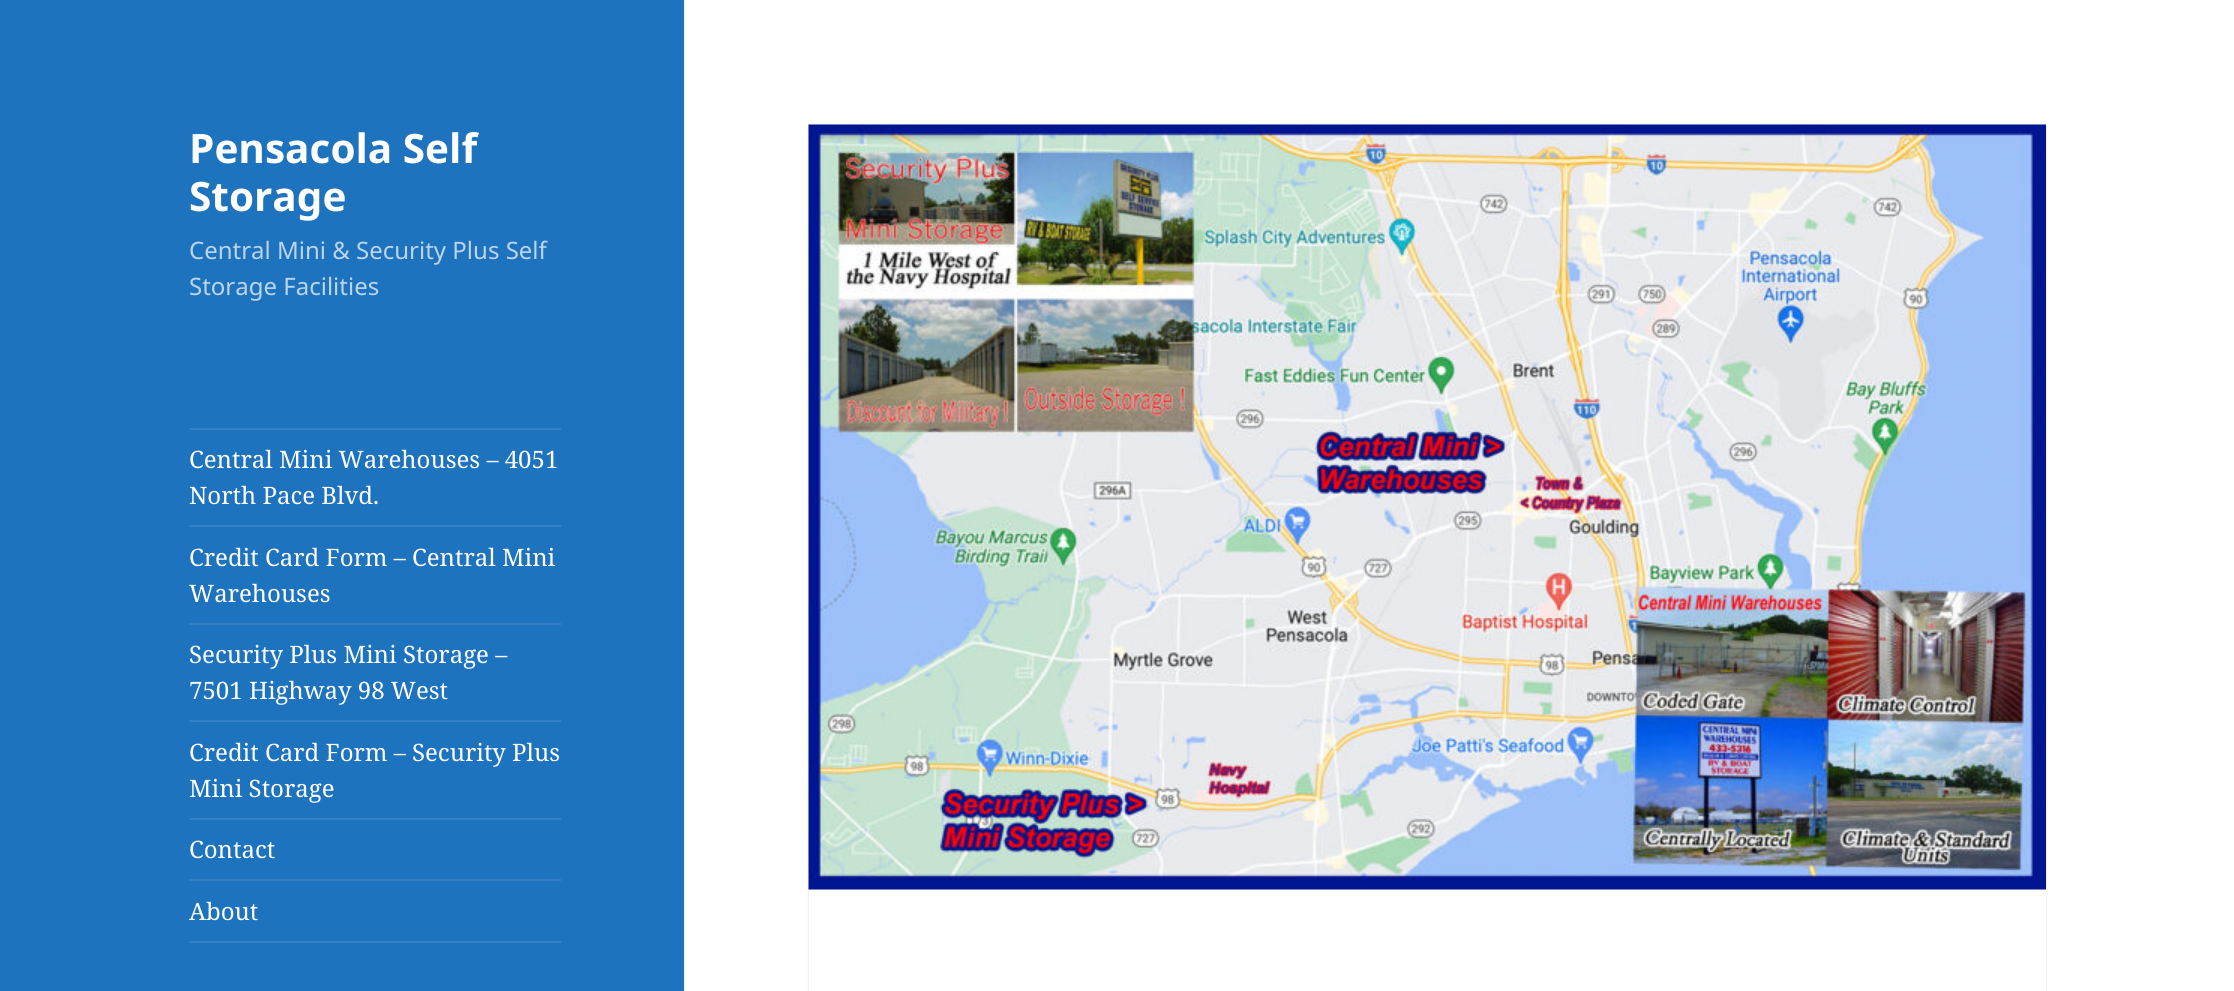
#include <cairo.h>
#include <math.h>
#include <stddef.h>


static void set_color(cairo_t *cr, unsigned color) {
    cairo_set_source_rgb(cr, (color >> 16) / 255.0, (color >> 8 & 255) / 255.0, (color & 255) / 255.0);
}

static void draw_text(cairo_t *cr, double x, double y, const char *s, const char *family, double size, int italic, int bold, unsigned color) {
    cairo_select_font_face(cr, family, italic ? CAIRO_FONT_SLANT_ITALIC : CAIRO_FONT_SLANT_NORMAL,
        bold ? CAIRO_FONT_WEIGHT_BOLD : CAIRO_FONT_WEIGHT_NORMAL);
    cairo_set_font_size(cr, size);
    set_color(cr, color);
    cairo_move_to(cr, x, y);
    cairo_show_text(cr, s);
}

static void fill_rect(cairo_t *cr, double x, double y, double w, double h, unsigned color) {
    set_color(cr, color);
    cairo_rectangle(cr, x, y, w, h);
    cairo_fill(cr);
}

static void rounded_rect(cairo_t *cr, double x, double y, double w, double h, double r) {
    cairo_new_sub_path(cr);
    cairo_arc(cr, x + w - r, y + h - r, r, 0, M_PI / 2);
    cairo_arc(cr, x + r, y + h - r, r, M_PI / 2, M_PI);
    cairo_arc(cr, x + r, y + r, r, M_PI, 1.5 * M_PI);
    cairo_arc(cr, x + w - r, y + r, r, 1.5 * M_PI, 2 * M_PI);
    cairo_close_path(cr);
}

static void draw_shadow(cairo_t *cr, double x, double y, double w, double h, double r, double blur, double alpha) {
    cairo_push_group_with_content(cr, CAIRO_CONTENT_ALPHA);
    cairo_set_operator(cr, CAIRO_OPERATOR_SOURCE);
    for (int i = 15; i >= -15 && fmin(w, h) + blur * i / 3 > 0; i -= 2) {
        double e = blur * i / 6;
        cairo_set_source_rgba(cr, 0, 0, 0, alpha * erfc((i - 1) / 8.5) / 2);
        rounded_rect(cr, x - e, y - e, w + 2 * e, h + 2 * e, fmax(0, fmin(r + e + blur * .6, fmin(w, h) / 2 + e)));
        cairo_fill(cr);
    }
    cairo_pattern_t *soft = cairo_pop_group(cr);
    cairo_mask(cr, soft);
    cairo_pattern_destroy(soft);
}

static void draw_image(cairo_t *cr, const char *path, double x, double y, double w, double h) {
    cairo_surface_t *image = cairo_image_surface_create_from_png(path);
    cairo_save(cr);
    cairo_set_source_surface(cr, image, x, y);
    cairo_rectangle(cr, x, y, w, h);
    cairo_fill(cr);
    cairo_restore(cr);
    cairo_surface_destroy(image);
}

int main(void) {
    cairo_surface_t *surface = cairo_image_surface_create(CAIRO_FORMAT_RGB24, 2234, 991);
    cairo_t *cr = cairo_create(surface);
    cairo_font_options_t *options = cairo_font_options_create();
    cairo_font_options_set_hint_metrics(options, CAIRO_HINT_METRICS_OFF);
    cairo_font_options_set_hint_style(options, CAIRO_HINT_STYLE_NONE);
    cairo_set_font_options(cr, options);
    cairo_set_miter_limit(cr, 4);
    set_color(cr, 0xFFFFFF);
    cairo_paint(cr);
    set_color(cr, 0x000000);
    draw_shadow(cr, 0, 0, 684, 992, 0, 1, 0.15);
    fill_rect(cr, 0, 0, 684, 991, 0x1E73BE);
    draw_text(cr, 189, 163, "Pensacola Self", "Noto Sans", 40.5, 0, 1, 0xFFFFFF);
    draw_text(cr, 189, 211, "Storage", "Noto Sans", 40.5, 0, 1, 0xFFFFFF);
    draw_text(cr, 189, 259, "Central Mini & Security Plus Self", "Noto Sans", 24, 0, 0, 0xBCD5EC);
    draw_text(cr, 189, 295, "Storage Facilities", "Noto Sans", 24, 0, 0, 0xBCD5EC);
    fill_rect(cr, 189, 428, 372, 2, 0x3581C5);
    fill_rect(cr, 189, 941, 372, 2, 0x3581C5);
    draw_text(cr, 189, 468, "Central Mini Warehouses – 4051", "Noto Serif", 24, 0, 0, 0xFFFFFF);
    draw_text(cr, 189, 504, "North Pace Blvd.", "Noto Serif", 24, 0, 0, 0xFFFFFF);
    fill_rect(cr, 189, 525, 372, 2, 0x3581C5);
    draw_text(cr, 189, 566, "Credit Card Form – Central Mini", "Noto Serif", 24, 0, 0, 0xFFFFFF);
    draw_text(cr, 189, 602, "Warehouses", "Noto Serif", 24, 0, 0, 0xFFFFFF);
    fill_rect(cr, 189, 623, 372, 2, 0x3581C5);
    draw_text(cr, 189, 663, "Security Plus Mini Storage –", "Noto Serif", 24, 0, 0, 0xFFFFFF);
    draw_text(cr, 189, 699, "7501 Highway 98 West", "Noto Serif", 24, 0, 0, 0xFFFFFF);
    fill_rect(cr, 189, 720, 372, 2, 0x3581C5);
    draw_text(cr, 189, 761, "Credit Card Form – Security Plus", "Noto Serif", 24, 0, 0, 0xFFFFFF);
    draw_text(cr, 189, 797, "Mini Storage", "Noto Serif", 24, 0, 0, 0xFFFFFF);
    fill_rect(cr, 189, 818, 372, 2, 0x3581C5);
    draw_text(cr, 189, 858, "Contact", "Noto Serif", 24, 0, 0, 0xFFFFFF);
    fill_rect(cr, 189, 879, 372, 2, 0x3581C5);
    draw_text(cr, 189, 920, "About", "Noto Serif", 24, 0, 0, 0xFFFFFF);
    cairo_save(cr);
    cairo_set_fill_rule(cr, CAIRO_FILL_RULE_EVEN_ODD);
    cairo_new_path(cr);
    cairo_move_to(cr, 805, 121);
    cairo_line_to(cr, 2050, 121);
    cairo_line_to(cr, 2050, 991);
    cairo_line_to(cr, 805, 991);
    cairo_close_path(cr);
    cairo_move_to(cr, 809, 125);
    cairo_line_to(cr, 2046, 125);
    cairo_line_to(cr, 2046, 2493);
    cairo_line_to(cr, 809, 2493);
    cairo_close_path(cr);
    cairo_clip(cr);
    set_color(cr, 0x000000);
    draw_shadow(cr, 809, 125, 1237, 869, 0, 1, 0.15);
    cairo_restore(cr);
    draw_image(cr, "assets/img1.png", 808, 124, 1238, 766);
    cairo_surface_write_to_png(surface, "output.png");
    cairo_font_options_destroy(options);
    cairo_destroy(cr);
    cairo_surface_destroy(surface);
    return 0;
}
